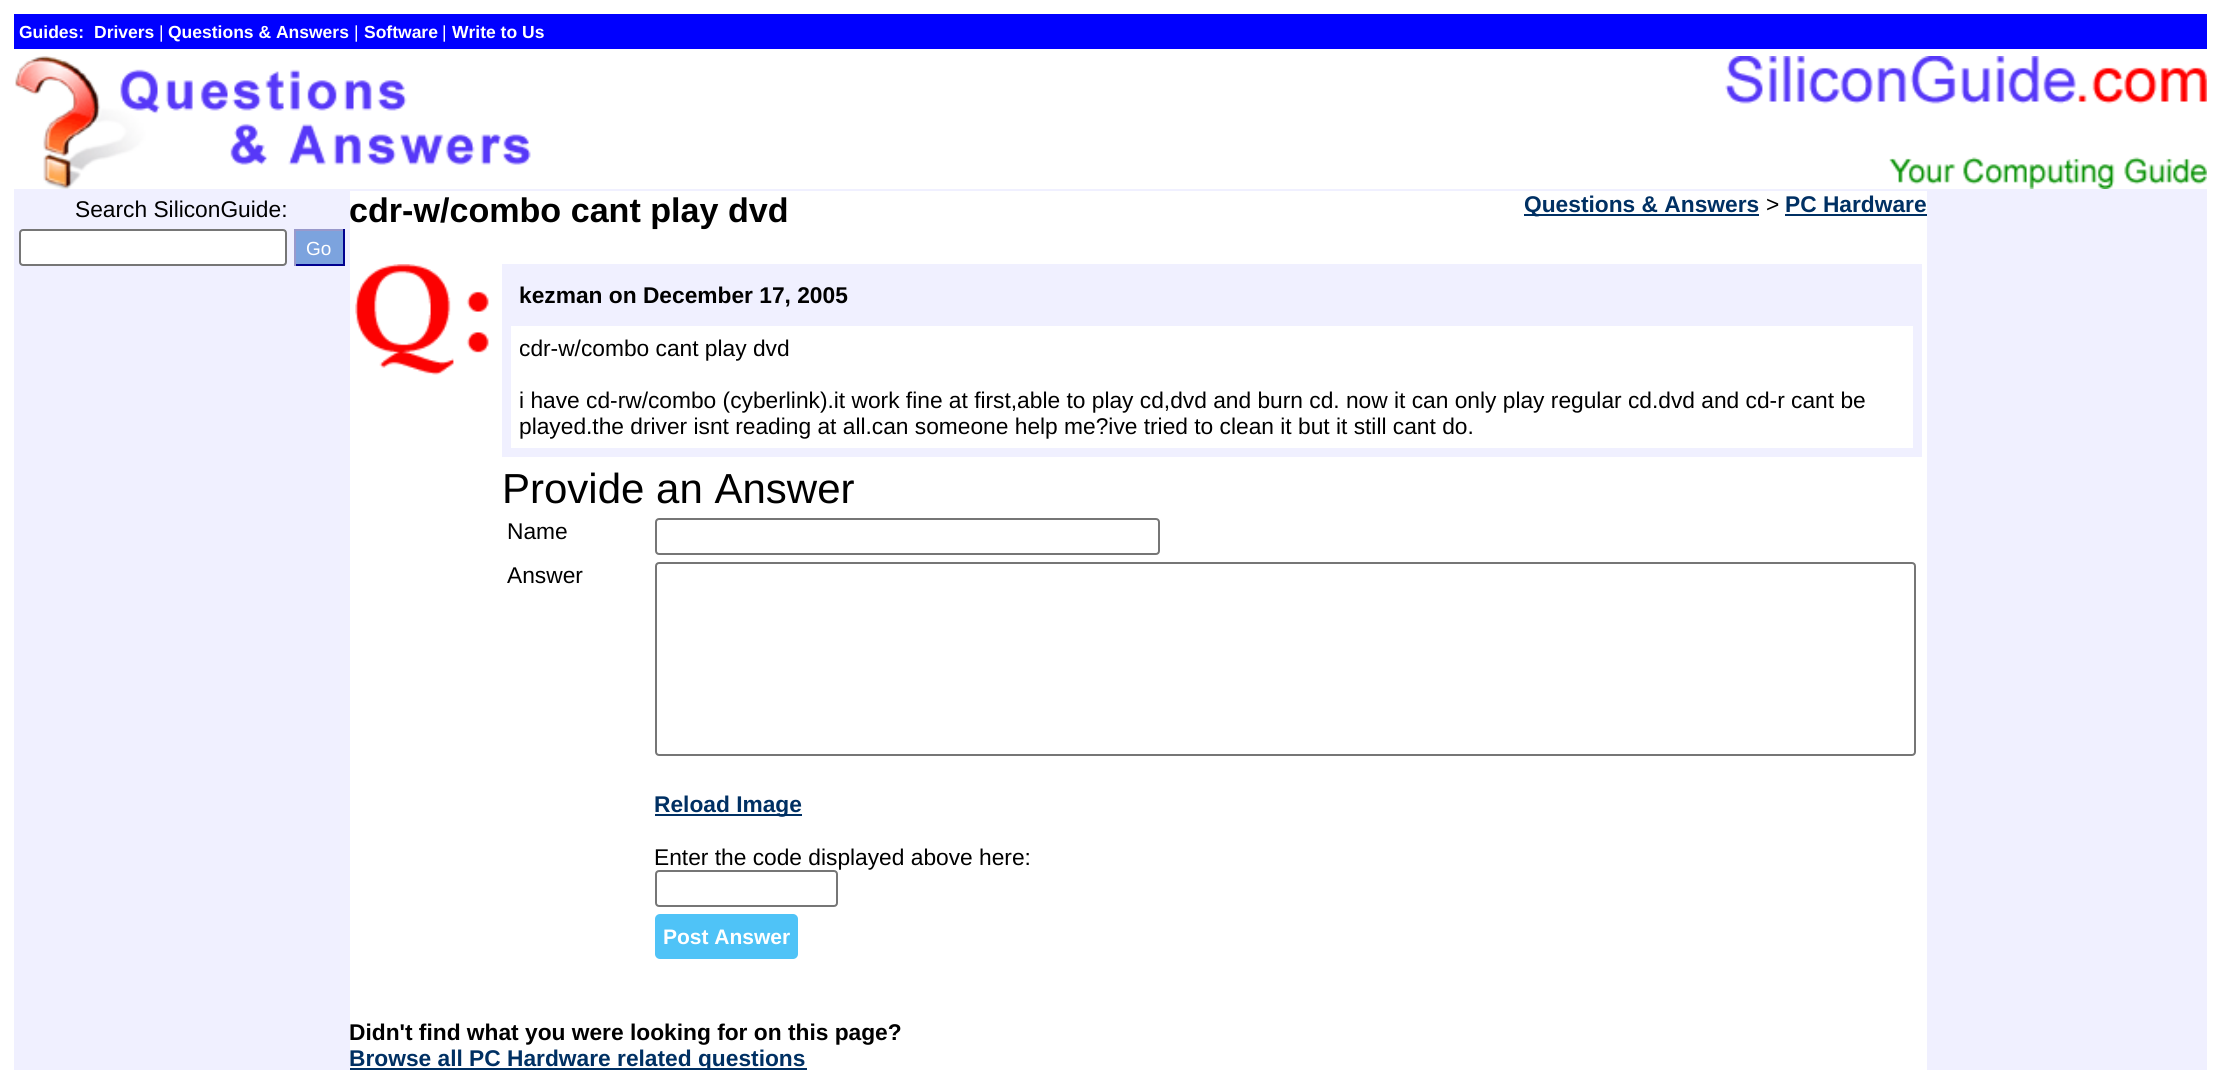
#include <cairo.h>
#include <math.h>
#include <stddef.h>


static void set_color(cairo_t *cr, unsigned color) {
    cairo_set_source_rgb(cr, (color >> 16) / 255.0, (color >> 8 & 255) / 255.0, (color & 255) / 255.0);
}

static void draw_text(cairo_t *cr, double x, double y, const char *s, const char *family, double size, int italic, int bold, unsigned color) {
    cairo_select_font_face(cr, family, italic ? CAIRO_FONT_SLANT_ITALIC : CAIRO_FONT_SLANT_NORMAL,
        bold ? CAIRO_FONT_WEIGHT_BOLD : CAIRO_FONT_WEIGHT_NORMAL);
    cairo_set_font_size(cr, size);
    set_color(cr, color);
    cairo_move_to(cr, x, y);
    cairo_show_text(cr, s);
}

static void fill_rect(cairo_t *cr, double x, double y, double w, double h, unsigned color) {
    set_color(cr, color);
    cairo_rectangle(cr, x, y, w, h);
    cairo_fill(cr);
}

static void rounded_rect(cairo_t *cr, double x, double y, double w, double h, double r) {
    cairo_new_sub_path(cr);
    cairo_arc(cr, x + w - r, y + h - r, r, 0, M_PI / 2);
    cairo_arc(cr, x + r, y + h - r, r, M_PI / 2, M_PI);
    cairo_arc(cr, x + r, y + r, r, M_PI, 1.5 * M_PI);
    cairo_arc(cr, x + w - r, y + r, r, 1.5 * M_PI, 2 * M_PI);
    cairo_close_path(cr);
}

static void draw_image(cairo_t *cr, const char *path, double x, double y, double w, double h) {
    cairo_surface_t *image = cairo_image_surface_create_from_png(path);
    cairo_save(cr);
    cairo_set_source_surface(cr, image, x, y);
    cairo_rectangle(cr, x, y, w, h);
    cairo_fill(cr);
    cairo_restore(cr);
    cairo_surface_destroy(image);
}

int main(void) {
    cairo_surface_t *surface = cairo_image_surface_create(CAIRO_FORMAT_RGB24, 2220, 1070);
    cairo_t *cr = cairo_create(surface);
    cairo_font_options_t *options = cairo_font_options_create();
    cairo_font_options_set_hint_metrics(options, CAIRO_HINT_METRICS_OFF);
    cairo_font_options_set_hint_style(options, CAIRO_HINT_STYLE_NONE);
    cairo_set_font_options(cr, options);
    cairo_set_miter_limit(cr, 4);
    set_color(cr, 0xFFFFFF);
    cairo_paint(cr);
    fill_rect(cr, 14, 14, 2193, 35, 0x0000FF);
    draw_text(cr, 19, 38, "Guides:", "Liberation Sans", 17.5, 0, 1, 0xFFFFFF);
    draw_text(cr, 94, 38, "Drivers", "Liberation Sans", 17.5, 0, 1, 0xFFFFFF);
    draw_text(cr, 159, 38, "|", "Liberation Sans", 17.5, 0, 0, 0xFFFFFF);
    draw_text(cr, 168, 38, "Questions & Answers", "Liberation Sans", 17.5, 0, 1, 0xFFFFFF);
    draw_text(cr, 354, 38, "|", "Liberation Sans", 17.5, 0, 0, 0xFFFFFF);
    draw_text(cr, 364, 38, "Software", "Liberation Sans", 17.5, 0, 1, 0xFFFFFF);
    draw_text(cr, 442, 38, "|", "Liberation Sans", 17.5, 0, 0, 0xFFFFFF);
    draw_text(cr, 452, 38, "Write to Us", "Liberation Sans", 17.5, 0, 1, 0xFFFFFF);
    draw_image(cr, "assets/img1.png", 15, 56, 516, 133);
    draw_image(cr, "assets/img2.png", 1725, 56, 482, 133);
    fill_rect(cr, 14, 189, 2193, 2, 0xF0F0FF);
    fill_rect(cr, 14, 191, 336, 879, 0xF0F0FF);
    draw_text(cr, 75, 217, "Search SiliconGuide:", "Liberation Sans", 22.75, 0, 0, 0x000000);
    set_color(cr, 0xFFFFFF);
    rounded_rect(cr, 20, 230, 266, 35, 3);
    cairo_fill_preserve(cr);
    set_color(cr, 0x767676);
    cairo_stroke(cr);
    fill_rect(cr, 296, 231, 47, 33, 0x7CA3DE);
    fill_rect(cr, 294, 229, 51, 2, 0x9999CC);
    fill_rect(cr, 343, 229, 2, 37, 0x000090);
    fill_rect(cr, 294, 264, 51, 2, 0x000090);
    fill_rect(cr, 294, 229, 2, 37, 0x9999CC);
    draw_text(cr, 306, 255, "Go", "Liberation Sans", 19, 0, 0, 0xFFFFFF);
    draw_text(cr, 349, 222, "cdr-w/combo cant play dvd", "Liberation Sans", 34.1, 0, 1, 0x000000);
    fill_rect(cr, 1524, 214, 235, 2, 0x003063);
    draw_text(cr, 1524, 212, "Questions & Answers", "Liberation Sans", 22.75, 0, 1, 0x003063);
    draw_text(cr, 1766, 212, ">", "Liberation Sans", 22.75, 0, 0, 0x000000);
    draw_text(cr, 1785, 212, "PC Hardware", "Liberation Sans", 22.75, 0, 1, 0x003063);
    fill_rect(cr, 1785, 214, 142, 2, 0x003063);
    draw_image(cr, "assets/img3.png", 355, 264, 134, 111);
    fill_rect(cr, 502, 264, 1420, 193, 0xF0F0FF);
    draw_text(cr, 519, 303, "kezman on December 17, 2005", "Liberation Sans", 22.75, 0, 1, 0x000000);
    fill_rect(cr, 511, 326, 1402, 122, 0xFFFFFF);
    draw_text(cr, 519, 356, "cdr-w/combo cant play dvd", "Liberation Sans", 22.75, 0, 0, 0x000000);
    draw_text(cr, 519, 408, "i have cd-rw/combo (cyberlink).it work fine at first,able to play cd,dvd and burn cd. now it can only play regular cd.dvd and cd-r cant be", "Liberation Sans", 22.75, 0, 0, 0x000000);
    draw_text(cr, 519, 434, "played.the driver isnt reading at all.can someone help me?ive tried to clean it but it still cant do.", "Liberation Sans", 22.75, 0, 0, 0x000000);
    draw_text(cr, 502, 503, "Provide an Answer", "Liberation Sans", 42, 0, 0, 0x000000);
    draw_text(cr, 507, 539, "Name", "Liberation Sans", 22.75, 0, 0, 0x000000);
    rounded_rect(cr, 656, 519, 503, 35, 3);
    set_color(cr, 0x767676);
    cairo_stroke(cr);
    draw_text(cr, 507, 583, "Answer", "Liberation Sans", 22.75, 0, 0, 0x000000);
    rounded_rect(cr, 656, 563, 1259, 192, 3);
    set_color(cr, 0x767676);
    cairo_stroke(cr);
    fill_rect(cr, 655, 814, 147, 2, 0x003063);
    draw_text(cr, 654, 812, "Reload Image", "Liberation Sans", 22.75, 0, 1, 0x003063);
    draw_text(cr, 654, 865, "Enter the code displayed above here:", "Liberation Sans", 22.75, 0, 0, 0x000000);
    rounded_rect(cr, 656, 871, 181, 35, 3);
    set_color(cr, 0x767676);
    cairo_stroke(cr);
    set_color(cr, 0x4FC3F7);
    rounded_rect(cr, 655, 914, 143, 45, 5);
    cairo_fill(cr);
    draw_text(cr, 663, 944, "Post Answer", "Liberation Sans", 21, 0, 1, 0xFFFFFF);
    draw_text(cr, 349, 1040, "Didn't find what you were looking for on this page?", "Liberation Sans", 22.75, 0, 1, 0x000000);
    fill_rect(cr, 350, 1068, 457, 2, 0x003063);
    draw_text(cr, 349, 1066, "Browse all PC Hardware related questions", "Liberation Sans", 22.75, 0, 1, 0x003063);
    fill_rect(cr, 1927, 191, 280, 879, 0xF0F0FF);
    cairo_surface_write_to_png(surface, "output.png");
    cairo_font_options_destroy(options);
    cairo_destroy(cr);
    cairo_surface_destroy(surface);
    return 0;
}
